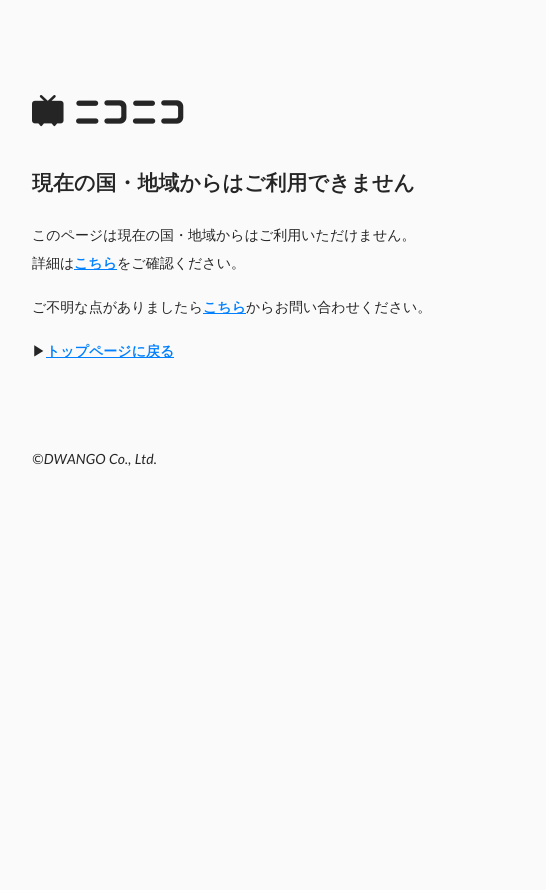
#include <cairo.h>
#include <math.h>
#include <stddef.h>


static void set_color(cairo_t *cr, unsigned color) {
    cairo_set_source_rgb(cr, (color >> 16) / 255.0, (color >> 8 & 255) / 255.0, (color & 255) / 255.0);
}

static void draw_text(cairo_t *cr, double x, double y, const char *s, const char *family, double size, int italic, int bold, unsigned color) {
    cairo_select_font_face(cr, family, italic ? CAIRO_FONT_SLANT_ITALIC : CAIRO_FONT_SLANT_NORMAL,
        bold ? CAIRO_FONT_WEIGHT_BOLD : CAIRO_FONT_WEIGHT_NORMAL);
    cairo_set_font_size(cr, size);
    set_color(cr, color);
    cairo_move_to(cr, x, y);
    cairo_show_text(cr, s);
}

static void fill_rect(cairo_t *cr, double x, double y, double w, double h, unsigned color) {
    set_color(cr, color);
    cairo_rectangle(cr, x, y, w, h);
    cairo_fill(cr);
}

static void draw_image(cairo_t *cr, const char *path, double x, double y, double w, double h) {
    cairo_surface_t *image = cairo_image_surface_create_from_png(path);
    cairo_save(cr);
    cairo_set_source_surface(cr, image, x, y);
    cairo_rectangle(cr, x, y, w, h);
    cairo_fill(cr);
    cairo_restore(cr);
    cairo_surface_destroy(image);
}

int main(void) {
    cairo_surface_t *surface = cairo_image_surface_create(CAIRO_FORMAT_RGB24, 546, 890);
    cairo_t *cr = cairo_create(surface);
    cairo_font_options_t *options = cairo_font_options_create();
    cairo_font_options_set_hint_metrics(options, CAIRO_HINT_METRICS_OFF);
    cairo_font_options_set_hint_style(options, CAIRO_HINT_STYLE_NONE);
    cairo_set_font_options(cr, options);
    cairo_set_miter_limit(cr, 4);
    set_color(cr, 0xFAFAFA);
    cairo_paint(cr);
    draw_image(cr, "assets/img1.png", 32, 95, 152, 32);
    draw_text(cr, 32, 190, "現在の国・地域からはご利用できません", "WenQuanYi Zen Hei", 21, 0, 1, 0x252525);
    draw_text(cr, 32, 240, "このページは現在の国・地域からはご利用いただけません。", "WenQuanYi Zen Hei Medium", 14, 0, 0, 0x252525);
    draw_text(cr, 32, 268, "詳細は", "WenQuanYi Zen Hei Medium", 14, 0, 0, 0x252525);
    fill_rect(cr, 74, 269, 43, 1, 0x0080FF);
    draw_text(cr, 74, 268, "こちら", "WenQuanYi Zen Hei", 14, 0, 1, 0x0080FF);
    draw_text(cr, 117, 268, "をご確認ください。", "WenQuanYi Zen Hei Medium", 14, 0, 0, 0x252525);
    draw_text(cr, 32, 312, "ご不明な点がありましたら", "WenQuanYi Zen Hei Medium", 14, 0, 0, 0x252525);
    fill_rect(cr, 203, 313, 43, 1, 0x0080FF);
    draw_text(cr, 203, 312, "こちら", "WenQuanYi Zen Hei", 14, 0, 1, 0x0080FF);
    draw_text(cr, 246, 312, "からお問い合わせください。", "WenQuanYi Zen Hei Medium", 14, 0, 0, 0x252525);
    draw_text(cr, 32, 356, "▶", "WenQuanYi Zen Hei Medium", 14, 0, 0, 0x252525);
    fill_rect(cr, 46, 357, 128, 1, 0x0080FF);
    draw_text(cr, 46, 356, "トップページに戻る", "WenQuanYi Zen Hei", 14, 0, 1, 0x0080FF);
    draw_text(cr, 32, 464, "©DWANGO Co., Ltd.", "Lato", 14, 1, 0, 0x252525);
    cairo_surface_write_to_png(surface, "output.png");
    cairo_font_options_destroy(options);
    cairo_destroy(cr);
    cairo_surface_destroy(surface);
    return 0;
}
